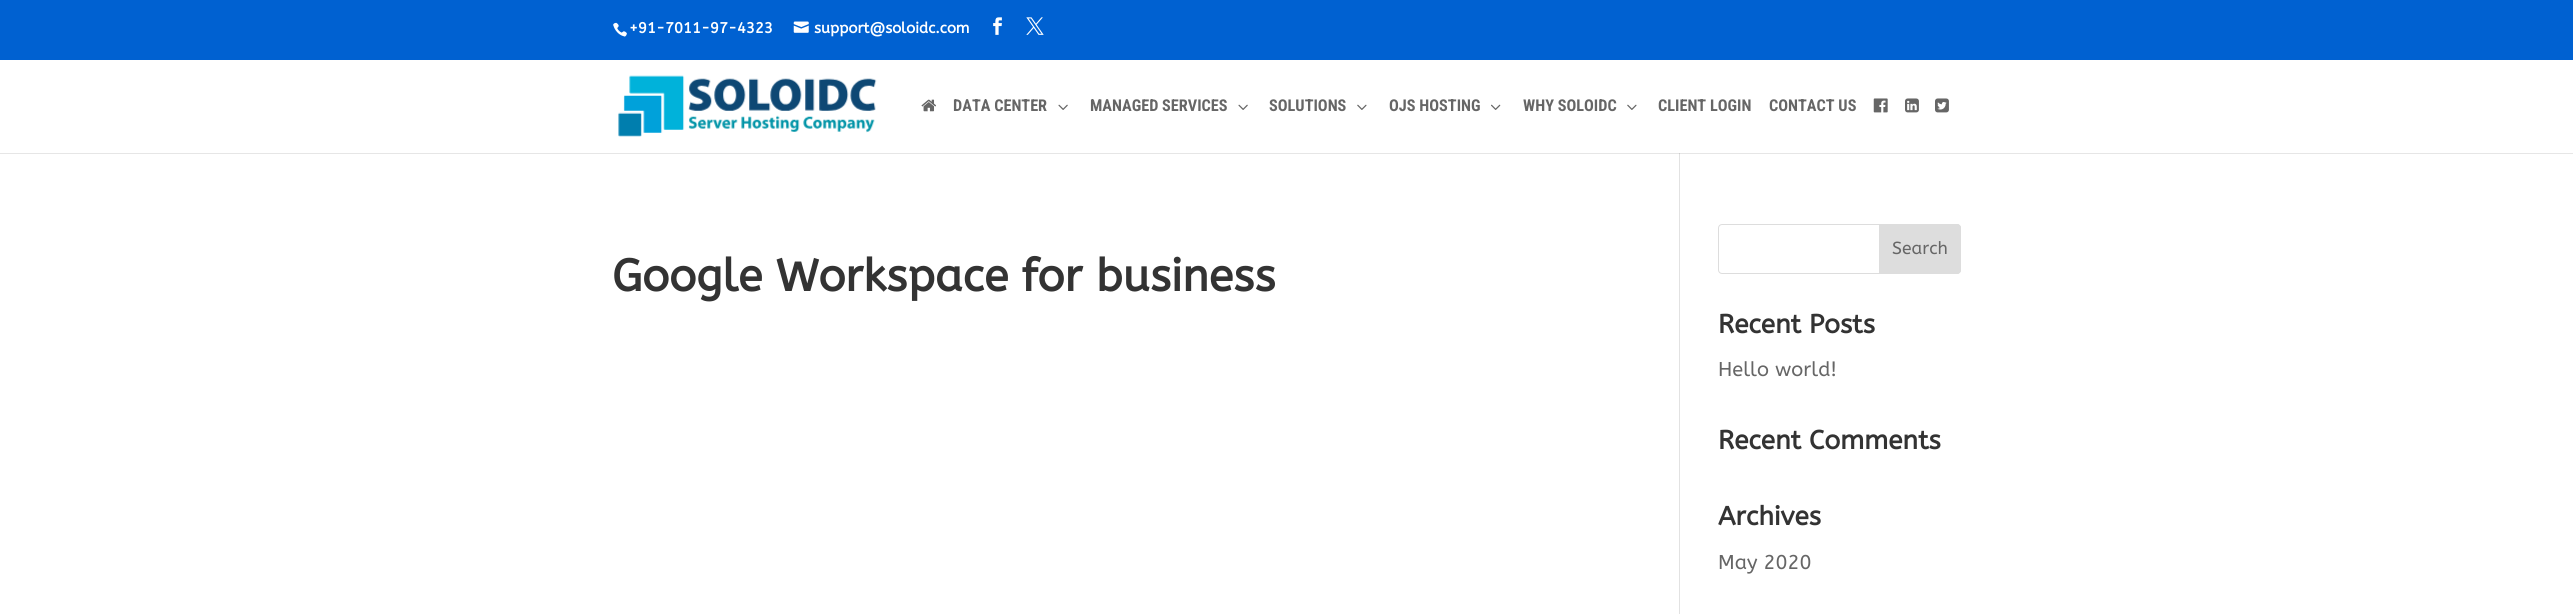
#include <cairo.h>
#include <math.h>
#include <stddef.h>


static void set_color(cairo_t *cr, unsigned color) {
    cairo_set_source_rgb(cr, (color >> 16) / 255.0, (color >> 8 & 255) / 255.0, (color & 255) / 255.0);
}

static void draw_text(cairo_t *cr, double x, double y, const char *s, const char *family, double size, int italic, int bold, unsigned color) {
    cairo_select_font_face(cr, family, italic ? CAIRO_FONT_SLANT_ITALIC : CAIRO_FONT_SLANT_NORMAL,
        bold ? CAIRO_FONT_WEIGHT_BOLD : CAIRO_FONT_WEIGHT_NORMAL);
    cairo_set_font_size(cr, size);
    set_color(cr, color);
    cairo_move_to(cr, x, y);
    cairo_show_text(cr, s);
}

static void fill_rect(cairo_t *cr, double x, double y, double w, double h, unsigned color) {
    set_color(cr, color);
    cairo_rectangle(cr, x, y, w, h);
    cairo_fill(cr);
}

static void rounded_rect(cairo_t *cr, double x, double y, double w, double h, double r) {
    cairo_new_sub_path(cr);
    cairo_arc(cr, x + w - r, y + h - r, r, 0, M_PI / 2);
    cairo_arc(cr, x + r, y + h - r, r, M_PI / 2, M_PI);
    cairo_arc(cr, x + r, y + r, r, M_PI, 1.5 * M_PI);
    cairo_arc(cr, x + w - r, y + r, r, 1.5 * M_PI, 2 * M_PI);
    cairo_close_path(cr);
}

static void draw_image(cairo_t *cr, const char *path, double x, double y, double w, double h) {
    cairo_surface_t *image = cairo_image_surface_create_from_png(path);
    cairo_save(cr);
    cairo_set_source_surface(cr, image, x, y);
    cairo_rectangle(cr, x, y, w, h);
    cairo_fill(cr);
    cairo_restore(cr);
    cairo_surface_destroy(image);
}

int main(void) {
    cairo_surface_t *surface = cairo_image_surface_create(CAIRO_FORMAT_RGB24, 2573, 614);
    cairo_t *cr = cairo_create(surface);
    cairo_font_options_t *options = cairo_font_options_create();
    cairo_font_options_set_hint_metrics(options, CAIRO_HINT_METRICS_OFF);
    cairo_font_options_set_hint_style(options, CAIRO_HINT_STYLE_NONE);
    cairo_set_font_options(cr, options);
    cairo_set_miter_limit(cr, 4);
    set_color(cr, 0xFFFFFF);
    cairo_paint(cr);
    fill_rect(cr, 0, 0, 2573, 60, 0x0061D1);
    draw_image(cr, "assets/img1.png", 613, 22, 14, 15);
    draw_text(cr, 629, 33, "+91-7011-97-4323", "ABeeZee", 15, 0, 1, 0xFFFFFF);
    draw_image(cr, "assets/img2.png", 793, 21, 16, 12);
    draw_text(cr, 814, 33, "support@soloidc.com", "ABeeZee", 15, 0, 1, 0xFFFFFF);
    draw_image(cr, "assets/img3.png", 993, 17, 9, 18);
    draw_image(cr, "assets/img4.png", 1026, 17, 18, 18);
    fill_rect(cr, 1679, 151, 1, 463, 0xE2E2E2);
    cairo_set_source_rgba(cr, 0, 0, 0, 0.1);
    cairo_new_path(cr);
    cairo_move_to(cr, 0, 152);
    cairo_line_to(cr, 0, 154);
    cairo_line_to(cr, 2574, 154);
    cairo_line_to(cr, 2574, 61);
    cairo_line_to(cr, 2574, 152);
    cairo_close_path(cr);
    cairo_fill(cr);
    fill_rect(cr, 0, 151, 2573, 2, 0xFFFFFF);
    draw_image(cr, "assets/img5.png", 618, 75, 259, 62);
    draw_image(cr, "assets/img6.png", 921, 99, 15, 13);
    draw_text(cr, 953, 111, "DATA CENTER", "Roboto Condensed", 16.25, 0, 1, 0x666666);
    draw_image(cr, "assets/img7.png", 1058, 104, 10, 6);
    draw_text(cr, 1090, 111, "MANAGED SERVICES", "Roboto Condensed", 16.25, 0, 1, 0x666666);
    draw_image(cr, "assets/img7.png", 1238, 104, 10, 6);
    draw_text(cr, 1269, 111, "SOLUTIONS", "Roboto Condensed", 16.25, 0, 1, 0x666666);
    draw_image(cr, "assets/img8.png", 1357, 104, 10, 6);
    draw_text(cr, 1389, 111, "OJS HOSTING", "Roboto Condensed", 16.25, 0, 1, 0x666666);
    draw_image(cr, "assets/img9.png", 1491, 104, 10, 6);
    draw_text(cr, 1523, 111, "WHY SOLOIDC", "Roboto Condensed", 16.25, 0, 1, 0x666666);
    draw_image(cr, "assets/img8.png", 1627, 104, 10, 6);
    draw_text(cr, 1658, 111, "CLIENT LOGIN", "Roboto Condensed", 16.25, 0, 1, 0x666666);
    draw_text(cr, 1769, 111, "CONTACT US", "Roboto Condensed", 16.25, 0, 1, 0x666666);
    draw_image(cr, "assets/img10.png", 1873, 98, 15, 15);
    draw_image(cr, "assets/img11.png", 1905, 98, 14, 15);
    draw_image(cr, "assets/img12.png", 1935, 98, 14, 15);
    draw_text(cr, 612, 291, "Google Workspace for business", "ABeeZee", 45, 0, 1, 0x333333);
    rounded_rect(cr, 1718.5, 224.5, 242, 49, 3.5);
    set_color(cr, 0xDDDDDD);
    cairo_set_line_width(cr, 1);
    cairo_stroke(cr);
    cairo_new_path(cr);
    cairo_move_to(cr, 1879.5, 224.5);
    cairo_line_to(cr, 1957, 224.5);
    cairo_curve_to(cr, 1959, 224.5, 1960.5, 226, 1960.5, 228);
    cairo_line_to(cr, 1960.5, 270);
    cairo_curve_to(cr, 1960.5, 272, 1959, 273.5, 1957, 273.5);
    cairo_line_to(cr, 1879.5, 273.5);
    cairo_close_path(cr);
    cairo_fill_preserve(cr);
    cairo_stroke(cr);
    draw_text(cr, 1892, 254, "Search", "ABeeZee", 17.5, 0, 0, 0x666666);
    draw_text(cr, 1718, 333, "Recent Posts", "ABeeZee", 26.25, 0, 1, 0x333333);
    draw_text(cr, 1718, 376, "Hello world!", "ABeeZee", 20, 0, 0, 0x666666);
    draw_text(cr, 1718, 449, "Recent Comments", "ABeeZee", 26.25, 0, 1, 0x333333);
    draw_text(cr, 1718, 525, "Archives", "ABeeZee", 26.25, 0, 1, 0x333333);
    draw_text(cr, 1718, 569, "May 2020", "ABeeZee", 20, 0, 0, 0x666666);
    cairo_surface_write_to_png(surface, "output.png");
    cairo_font_options_destroy(options);
    cairo_destroy(cr);
    cairo_surface_destroy(surface);
    return 0;
}
